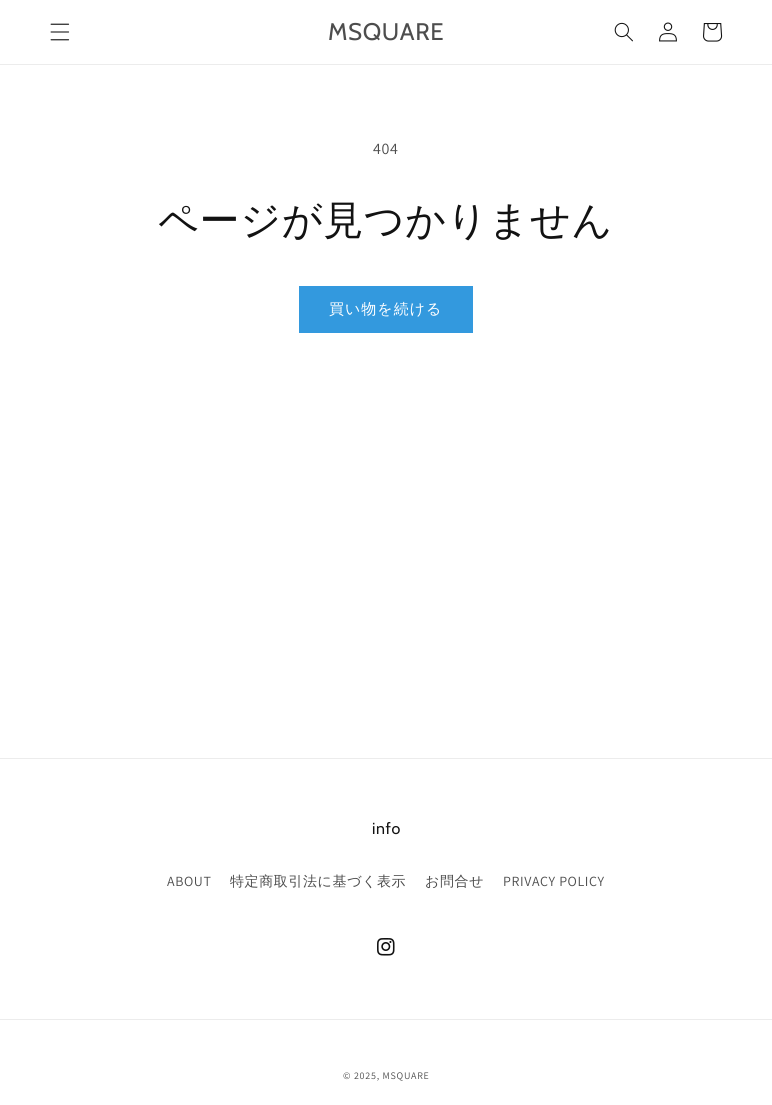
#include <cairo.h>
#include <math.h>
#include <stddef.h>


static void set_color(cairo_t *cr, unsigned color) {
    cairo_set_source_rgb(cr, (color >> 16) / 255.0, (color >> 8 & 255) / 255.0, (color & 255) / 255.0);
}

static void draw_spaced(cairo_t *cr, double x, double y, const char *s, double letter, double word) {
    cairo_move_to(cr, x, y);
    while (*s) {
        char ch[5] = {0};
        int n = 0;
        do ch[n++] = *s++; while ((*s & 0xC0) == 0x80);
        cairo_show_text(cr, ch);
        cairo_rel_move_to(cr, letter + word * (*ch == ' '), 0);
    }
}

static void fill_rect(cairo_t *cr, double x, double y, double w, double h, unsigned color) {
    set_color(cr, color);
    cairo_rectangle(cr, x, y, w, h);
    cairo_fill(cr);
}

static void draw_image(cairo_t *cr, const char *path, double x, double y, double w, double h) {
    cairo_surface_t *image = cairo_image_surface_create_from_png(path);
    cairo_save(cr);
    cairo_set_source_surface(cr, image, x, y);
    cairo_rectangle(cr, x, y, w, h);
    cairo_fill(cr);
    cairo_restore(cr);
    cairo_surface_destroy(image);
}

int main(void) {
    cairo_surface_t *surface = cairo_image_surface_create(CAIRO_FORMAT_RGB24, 772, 1105);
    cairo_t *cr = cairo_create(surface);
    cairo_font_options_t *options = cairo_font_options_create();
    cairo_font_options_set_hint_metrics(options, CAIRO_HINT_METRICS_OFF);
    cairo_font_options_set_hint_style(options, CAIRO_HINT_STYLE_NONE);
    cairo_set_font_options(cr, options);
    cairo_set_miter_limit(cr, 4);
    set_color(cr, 0xFFFFFF);
    cairo_paint(cr);
    fill_rect(cr, 0, 64, 772, 1, 0xECECEC);
    draw_image(cr, "assets/img1.png", 50, 23, 20, 18);
    cairo_select_font_face(cr, "Cabin", CAIRO_FONT_SLANT_NORMAL, CAIRO_FONT_WEIGHT_NORMAL);
    cairo_set_font_size(cr, 24);
    set_color(cr, 0x4D4D4D);
    draw_spaced(cr, 328, 40, "MSQUARE", 0.6, 0);
    draw_image(cr, "assets/img2.png", 614, 22, 19, 20);
    draw_image(cr, "assets/img3.png", 659, 22, 18, 20);
    draw_image(cr, "assets/img4.png", 703, 23, 20, 19);
    cairo_select_font_face(cr, "Assistant", CAIRO_FONT_SLANT_NORMAL, CAIRO_FONT_WEIGHT_NORMAL);
    cairo_set_font_size(cr, 16);
    draw_spaced(cr, 373, 154, "404", 0.6, 0);
    cairo_select_font_face(cr, "WenQuanYi Zen Hei Medium", CAIRO_FONT_SLANT_NORMAL, CAIRO_FONT_WEIGHT_NORMAL);
    cairo_set_font_size(cr, 40);
    set_color(cr, 0x121212);
    draw_spaced(cr, 158, 234, "ページが見つかりません", 0.6, 0);
    fill_rect(cr, 299, 286, 174, 47, 0x3399DE);
    cairo_set_font_size(cr, 15);
    set_color(cr, 0xFFFFFF);
    draw_spaced(cr, 329, 314, "買い物を続ける", 1, 0);
    fill_rect(cr, 0, 758, 772, 1, 0xECECEC);
    cairo_select_font_face(cr, "Cabin", CAIRO_FONT_SLANT_NORMAL, CAIRO_FONT_WEIGHT_NORMAL);
    cairo_set_font_size(cr, 16);
    set_color(cr, 0x121212);
    draw_spaced(cr, 372, 834, "info", 0.6, 0);
    cairo_select_font_face(cr, "Assistant", CAIRO_FONT_SLANT_NORMAL, CAIRO_FONT_WEIGHT_NORMAL);
    cairo_set_font_size(cr, 14);
    set_color(cr, 0x4D4D4D);
    draw_spaced(cr, 167, 886, "ABOUT", 0.6, 0);
    cairo_select_font_face(cr, "WenQuanYi Zen Hei Medium", CAIRO_FONT_SLANT_NORMAL, CAIRO_FONT_WEIGHT_NORMAL);
    draw_spaced(cr, 230, 886, "特定商取引法に基づく表示", 0.6, 0);
    draw_spaced(cr, 425, 886, "お問合せ", 0.6, 0);
    cairo_select_font_face(cr, "Assistant", CAIRO_FONT_SLANT_NORMAL, CAIRO_FONT_WEIGHT_NORMAL);
    draw_spaced(cr, 503, 886, "PRIVACY POLICY", 0.6, 0);
    draw_image(cr, "assets/img5.png", 377, 938, 18, 18);
    fill_rect(cr, 0, 1019, 772, 1, 0xECECEC);
    cairo_set_font_size(cr, 10);
    set_color(cr, 0x4D4D4D);
    draw_spaced(cr, 343, 1079, "© 2025, MSQUARE", 0.75, 0);
    cairo_surface_write_to_png(surface, "output.png");
    cairo_font_options_destroy(options);
    cairo_destroy(cr);
    cairo_surface_destroy(surface);
    return 0;
}
